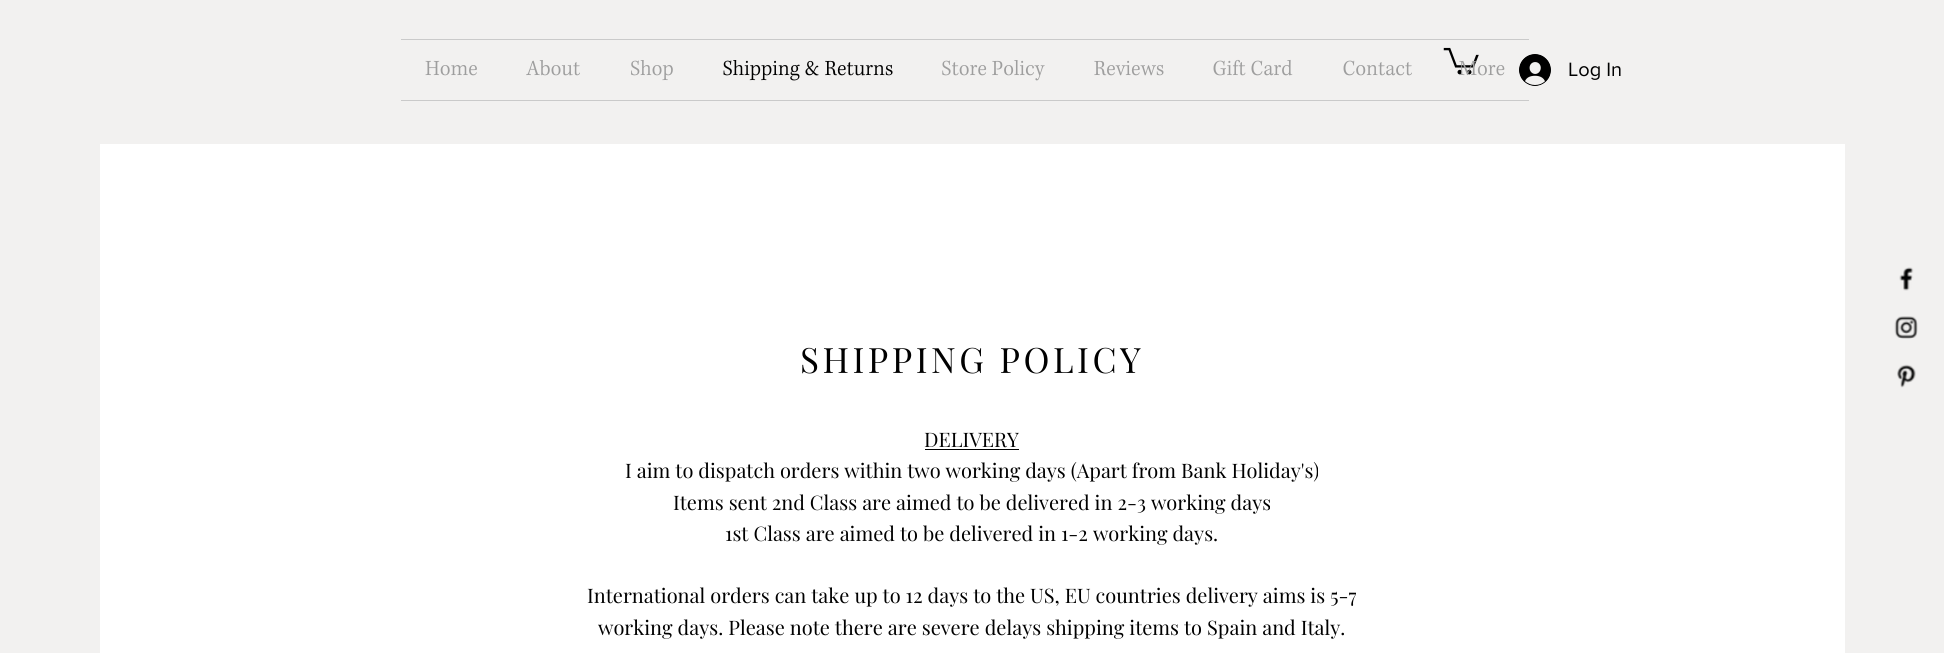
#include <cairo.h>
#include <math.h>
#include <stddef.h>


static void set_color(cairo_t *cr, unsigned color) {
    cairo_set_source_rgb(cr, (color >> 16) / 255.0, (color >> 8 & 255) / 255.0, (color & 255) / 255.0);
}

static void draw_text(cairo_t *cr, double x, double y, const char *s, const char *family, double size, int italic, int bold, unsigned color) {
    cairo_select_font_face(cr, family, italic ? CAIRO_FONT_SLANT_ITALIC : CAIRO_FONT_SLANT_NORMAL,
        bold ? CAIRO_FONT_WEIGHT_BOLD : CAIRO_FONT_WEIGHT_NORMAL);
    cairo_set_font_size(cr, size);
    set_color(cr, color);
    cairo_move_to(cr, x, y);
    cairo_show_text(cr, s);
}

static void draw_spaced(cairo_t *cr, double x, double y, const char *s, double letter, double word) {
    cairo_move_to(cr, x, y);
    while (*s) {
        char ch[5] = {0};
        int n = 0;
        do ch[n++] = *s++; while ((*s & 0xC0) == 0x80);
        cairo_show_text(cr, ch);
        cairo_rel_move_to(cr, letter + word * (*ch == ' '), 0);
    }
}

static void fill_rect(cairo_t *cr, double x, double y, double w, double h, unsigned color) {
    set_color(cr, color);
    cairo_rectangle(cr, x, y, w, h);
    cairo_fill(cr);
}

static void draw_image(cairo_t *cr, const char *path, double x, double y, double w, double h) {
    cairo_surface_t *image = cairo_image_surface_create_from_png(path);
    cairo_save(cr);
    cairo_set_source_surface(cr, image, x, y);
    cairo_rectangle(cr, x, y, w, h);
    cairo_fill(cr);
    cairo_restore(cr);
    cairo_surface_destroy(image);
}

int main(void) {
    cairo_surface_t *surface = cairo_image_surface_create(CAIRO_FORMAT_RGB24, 1944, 653);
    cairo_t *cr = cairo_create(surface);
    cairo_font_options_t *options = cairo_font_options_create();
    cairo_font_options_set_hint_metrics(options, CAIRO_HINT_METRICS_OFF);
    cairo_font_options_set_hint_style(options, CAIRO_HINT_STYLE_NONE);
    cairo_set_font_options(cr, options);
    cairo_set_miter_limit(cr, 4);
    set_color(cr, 0xF2F1F0);
    cairo_paint(cr);
    fill_rect(cr, 401, 39, 1128, 1, 0xCACACA);
    fill_rect(cr, 401, 100, 1128, 1, 0xCACACA);
    draw_image(cr, "assets/img1.png", 425, 60, 52, 16);
    draw_image(cr, "assets/img2.png", 526, 60, 54, 16);
    draw_image(cr, "assets/img3.png", 631, 60, 42, 21);
    draw_image(cr, "assets/img4.png", 723, 60, 170, 21);
    draw_image(cr, "assets/img5.png", 942, 60, 103, 21);
    draw_image(cr, "assets/img6.png", 1094, 60, 70, 16);
    draw_image(cr, "assets/img7.png", 1213, 59, 80, 17);
    draw_image(cr, "assets/img8.png", 1343, 60, 69, 16);
    draw_image(cr, "assets/img10.png", 1443, 47, 36, 28);
    draw_image(cr, "assets/img9.png", 1459, 60, 46, 16);
    draw_image(cr, "assets/img11.png", 1519, 54, 32, 32);
    draw_text(cr, 1568, 76, "Log In", "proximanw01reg", 20, 0, 0, 0x000000);
    draw_image(cr, "assets/img12.png", 1899, 267, 15, 24);
    draw_image(cr, "assets/img13.png", 1894, 316, 24, 23);
    draw_image(cr, "assets/img14.png", 1897, 364, 19, 24);
    fill_rect(cr, 100, 144, 1745, 509, 0xFFFFFF);
    cairo_select_font_face(cr, "Playfair Display", CAIRO_FONT_SLANT_NORMAL, CAIRO_FONT_WEIGHT_NORMAL);
    cairo_set_font_size(cr, 35);
    set_color(cr, 0x000000);
    draw_spaced(cr, 800, 373, "SHIPPING POLICY", 3.5, 0);
    draw_text(cr, 924, 447, "DELIVERY", "Playfair Display", 20, 0, 0, 0x000000);
    fill_rect(cr, 925, 449, 94, 1, 0x000000);
    draw_text(cr, 625, 478, "I aim to dispatch orders within two working days (Apart from Bank Holiday's)", "Playfair Display", 20, 0, 0, 0x000000);
    draw_text(cr, 673, 510, "Items sent 2nd Class are aimed to be delivered in 2-3 working days", "Playfair Display", 20, 0, 0, 0x000000);
    draw_text(cr, 725, 541, "1st Class are aimed to be delivered in 1-2 working days.", "Playfair Display", 20, 0, 0, 0x000000);
    draw_text(cr, 587, 603, "International orders can take up to 12 days to the US, EU countries delivery aims is 5-7", "Playfair Display", 20, 0, 0, 0x000000);
    draw_text(cr, 598, 635, "working days. Please note there are severe delays shipping items to Spain and Italy.", "Playfair Display", 20, 0, 0, 0x000000);
    cairo_surface_write_to_png(surface, "output.png");
    cairo_font_options_destroy(options);
    cairo_destroy(cr);
    cairo_surface_destroy(surface);
    return 0;
}
